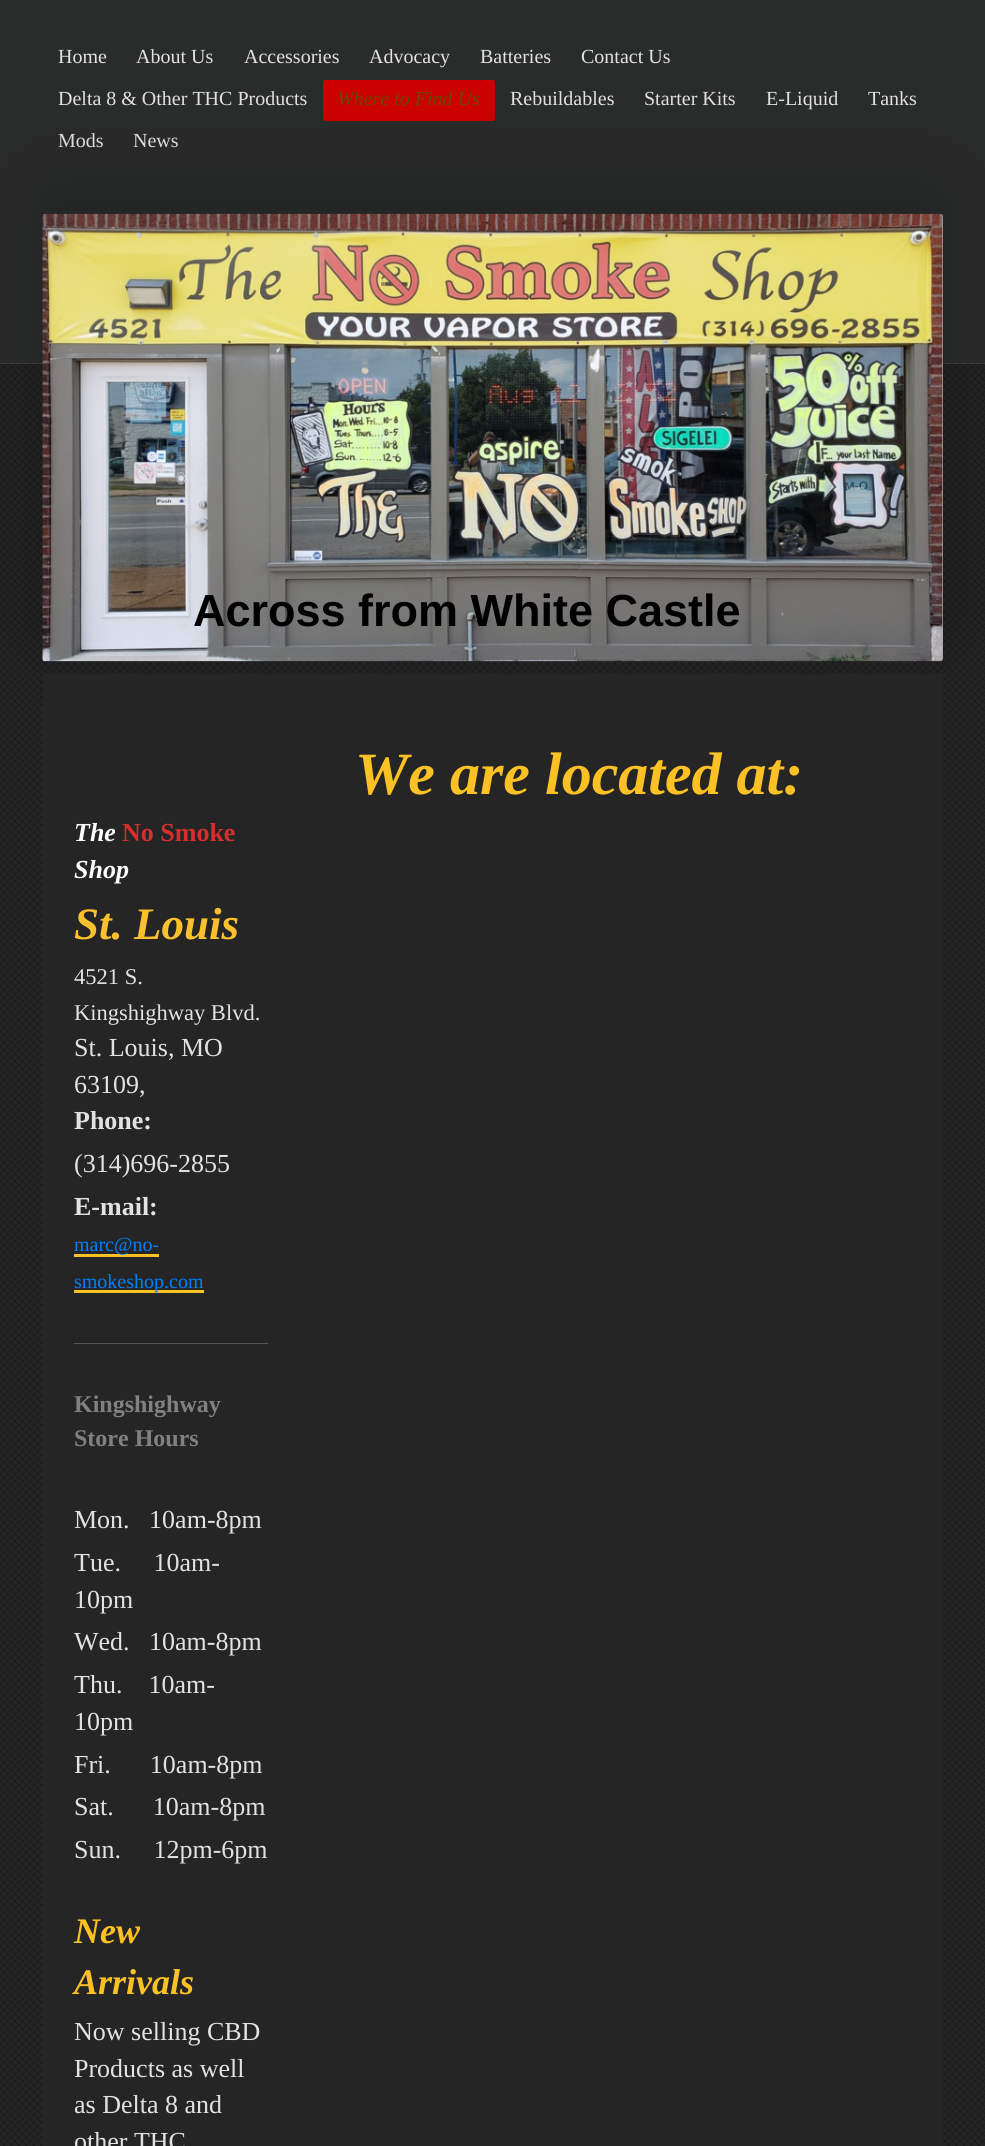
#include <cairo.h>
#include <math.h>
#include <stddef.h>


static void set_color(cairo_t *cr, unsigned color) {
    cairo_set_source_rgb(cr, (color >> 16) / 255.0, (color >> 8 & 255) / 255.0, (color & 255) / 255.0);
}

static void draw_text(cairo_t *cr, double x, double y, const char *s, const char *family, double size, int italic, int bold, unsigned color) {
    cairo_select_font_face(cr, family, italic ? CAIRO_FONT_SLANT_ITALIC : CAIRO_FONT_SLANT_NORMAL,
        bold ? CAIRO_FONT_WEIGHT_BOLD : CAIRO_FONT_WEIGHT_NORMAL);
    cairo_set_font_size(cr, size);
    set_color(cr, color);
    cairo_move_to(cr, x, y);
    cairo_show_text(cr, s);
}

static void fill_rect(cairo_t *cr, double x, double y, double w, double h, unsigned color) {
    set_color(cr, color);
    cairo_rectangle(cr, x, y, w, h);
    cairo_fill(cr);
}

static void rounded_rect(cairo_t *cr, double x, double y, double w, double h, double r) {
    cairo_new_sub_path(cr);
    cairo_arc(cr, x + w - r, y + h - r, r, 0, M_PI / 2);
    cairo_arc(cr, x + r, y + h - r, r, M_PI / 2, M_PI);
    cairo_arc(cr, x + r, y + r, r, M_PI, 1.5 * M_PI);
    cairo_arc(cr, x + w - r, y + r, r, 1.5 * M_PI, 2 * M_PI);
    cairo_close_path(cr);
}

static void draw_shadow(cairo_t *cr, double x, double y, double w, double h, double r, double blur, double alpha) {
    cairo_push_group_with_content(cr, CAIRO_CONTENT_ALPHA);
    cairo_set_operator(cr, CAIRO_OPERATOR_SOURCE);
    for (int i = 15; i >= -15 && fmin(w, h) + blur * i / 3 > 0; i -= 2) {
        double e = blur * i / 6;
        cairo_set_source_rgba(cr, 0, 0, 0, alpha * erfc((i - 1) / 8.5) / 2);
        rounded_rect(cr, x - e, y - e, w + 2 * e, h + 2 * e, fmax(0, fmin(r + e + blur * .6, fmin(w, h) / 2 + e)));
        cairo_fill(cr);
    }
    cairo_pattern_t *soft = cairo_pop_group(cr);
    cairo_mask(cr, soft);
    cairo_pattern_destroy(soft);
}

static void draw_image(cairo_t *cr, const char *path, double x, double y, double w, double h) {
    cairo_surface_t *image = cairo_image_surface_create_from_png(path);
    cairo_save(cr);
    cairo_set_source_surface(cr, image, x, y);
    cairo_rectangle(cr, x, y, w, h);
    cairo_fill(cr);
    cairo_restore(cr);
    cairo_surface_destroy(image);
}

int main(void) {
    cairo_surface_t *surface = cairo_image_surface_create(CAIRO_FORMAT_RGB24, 985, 2146);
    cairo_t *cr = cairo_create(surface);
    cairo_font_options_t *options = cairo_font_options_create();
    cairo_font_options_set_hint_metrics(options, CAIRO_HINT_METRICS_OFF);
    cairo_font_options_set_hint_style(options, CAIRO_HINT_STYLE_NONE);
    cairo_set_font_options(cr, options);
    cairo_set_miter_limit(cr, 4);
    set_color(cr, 0x252525);
    cairo_paint(cr);
    draw_image(cr, "assets/img1.png", 0, 364, 985, 1782);
    fill_rect(cr, 0, 0, 985, 363, 0x2A2B2B);
    fill_rect(cr, 0, 363, 985, 1, 0x3C3E3E);
    draw_text(cr, 58, 63, "Home", "Liberation Serif", 20, 0, 0, 0xE2E2E2);
    draw_text(cr, 136, 63, "About Us", "Liberation Serif", 20, 0, 0, 0xE2E2E2);
    draw_text(cr, 244, 63, "Accessories", "Liberation Serif", 20, 0, 0, 0xE2E2E2);
    draw_text(cr, 369, 63, "Advocacy", "Liberation Serif", 20, 0, 0, 0xE2E2E2);
    draw_text(cr, 480, 63, "Batteries", "Liberation Serif", 20, 0, 0, 0xE2E2E2);
    draw_text(cr, 581, 63, "Contact Us", "Liberation Serif", 20, 0, 0, 0xE2E2E2);
    draw_text(cr, 58, 105, "Delta 8 & Other THC Products", "Liberation Serif", 20, 0, 0, 0xE2E2E2);
    set_color(cr, 0xCD0000);
    rounded_rect(cr, 323, 80, 172, 41, 2.5);
    cairo_fill(cr);
    draw_text(cr, 337, 105, "Where to Find Us", "Liberation Serif", 20, 1, 0, 0x654A05);
    draw_text(cr, 510, 105, "Rebuildables", "Liberation Serif", 20, 0, 0, 0xE2E2E2);
    draw_text(cr, 644, 105, "Starter Kits", "Liberation Serif", 20, 0, 0, 0xE2E2E2);
    draw_text(cr, 766, 105, "E-Liquid", "Liberation Serif", 20, 0, 0, 0xE2E2E2);
    draw_text(cr, 868, 105, "Tanks", "Liberation Serif", 20, 0, 0, 0xE2E2E2);
    draw_text(cr, 58, 147, "Mods", "Liberation Serif", 20, 0, 0, 0xE2E2E2);
    draw_text(cr, 133, 147, "News", "Liberation Serif", 20, 0, 0, 0xE2E2E2);
    set_color(cr, 0x000000);
    draw_shadow(cr, 43, 189, 900, 447, 2.5, 50, 0.24);
    draw_image(cr, "assets/img2.png", 42, 213, 901, 449);
    set_color(cr, 0xA0A0A0);
    rounded_rect(cr, 43, 214, 900, 447, 2.5);
    cairo_fill(cr);
    draw_image(cr, "assets/img3.png", 42, 213, 901, 449);
    draw_text(cr, 193, 626, "Across from White Castle", "Liberation Sans", 45, 0, 1, 0x000000);
    fill_rect(cr, 43, 674, 900, 1472, 0x252525);
    draw_text(cr, 355, 794, "We are located at:", "Liberation Serif", 60, 1, 1, 0xFCC125);
    draw_text(cr, 74, 841, "The", "Liberation Serif", 26, 1, 1, 0xFFFFFF);
    draw_text(cr, 122, 841, "No Smoke", "Liberation Serif", 26, 0, 1, 0xD32F2F);
    draw_text(cr, 74, 878, "Shop", "Liberation Serif", 26, 1, 1, 0xFFFFFF);
    draw_text(cr, 74, 939, "St. Louis", "Liberation Serif", 45, 1, 1, 0xFBC02E);
    draw_text(cr, 74, 984, "4521 S.", "Liberation Serif", 22.5, 0, 0, 0xE2E2E2);
    draw_text(cr, 74, 1020, "Kingshighway Blvd.", "Liberation Serif", 22.5, 0, 0, 0xE2E2E2);
    draw_text(cr, 74, 1056, "St. Louis, MO", "Liberation Serif", 26, 0, 0, 0xE2E2E2);
    draw_text(cr, 74, 1093, "63109,", "Liberation Serif", 26, 0, 0, 0xE2E2E2);
    draw_text(cr, 74, 1129, "Phone:", "Liberation Serif", 26, 0, 1, 0xE2E2E2);
    draw_text(cr, 74, 1172, "(314)696-2855", "Liberation Serif", 26, 0, 0, 0xE2E2E2);
    draw_text(cr, 74, 1215, "E-mail:", "Liberation Serif", 26, 0, 1, 0xE2E2E2);
    fill_rect(cr, 74, 1254, 85, 3, 0xFCC125);
    draw_text(cr, 74, 1251, "marc@no-", "Liberation Serif", 20, 0, 0, 0x0080FF);
    fill_rect(cr, 74, 1290, 130, 3, 0xFCC125);
    draw_text(cr, 74, 1288, "smokeshop.com", "Liberation Serif", 20, 0, 0, 0x0080FF);
    fill_rect(cr, 74, 1343, 194, 1, 0x535353);
    draw_text(cr, 74, 1412, "Kingshighway", "Liberation Serif", 24, 0, 1, 0x818181);
    draw_text(cr, 74, 1446, "Store Hours", "Liberation Serif", 24, 0, 1, 0x818181);
    draw_text(cr, 74, 1528, "Mon.   10am-8pm", "Liberation Serif", 26, 0, 0, 0xE2E2E2);
    draw_text(cr, 74, 1571, "Tue.     10am-", "Liberation Serif", 26, 0, 0, 0xE2E2E2);
    draw_text(cr, 74, 1608, "10pm", "Liberation Serif", 26, 0, 0, 0xE2E2E2);
    draw_text(cr, 74, 1650, "Wed.   10am-8pm", "Liberation Serif", 26, 0, 0, 0xE2E2E2);
    draw_text(cr, 74, 1693, "Thu.    10am-", "Liberation Serif", 26, 0, 0, 0xE2E2E2);
    draw_text(cr, 74, 1730, "10pm", "Liberation Serif", 26, 0, 0, 0xE2E2E2);
    draw_text(cr, 74, 1773, "Fri.      10am-8pm", "Liberation Serif", 26, 0, 0, 0xE2E2E2);
    draw_text(cr, 74, 1815, "Sat.      10am-8pm", "Liberation Serif", 26, 0, 0, 0xE2E2E2);
    draw_text(cr, 74, 1858, "Sun.     12pm-6pm", "Liberation Serif", 26, 0, 0, 0xE2E2E2);
    draw_text(cr, 74, 1943, "New", "Liberation Serif", 36, 1, 1, 0xFCC125);
    draw_text(cr, 74, 1994, "Arrivals", "Liberation Serif", 36, 1, 1, 0xFCC125);
    draw_text(cr, 74, 2040, "Now selling CBD", "Liberation Serif", 26, 0, 0, 0xE2E2E2);
    draw_text(cr, 74, 2077, "Products as well", "Liberation Serif", 26, 0, 0, 0xE2E2E2);
    draw_text(cr, 74, 2113, "as Delta 8 and", "Liberation Serif", 26, 0, 0, 0xE2E2E2);
    draw_text(cr, 74, 2150, "other THC", "Liberation Serif", 26, 0, 0, 0xE2E2E2);
    cairo_surface_write_to_png(surface, "output.png");
    cairo_font_options_destroy(options);
    cairo_destroy(cr);
    cairo_surface_destroy(surface);
    return 0;
}
